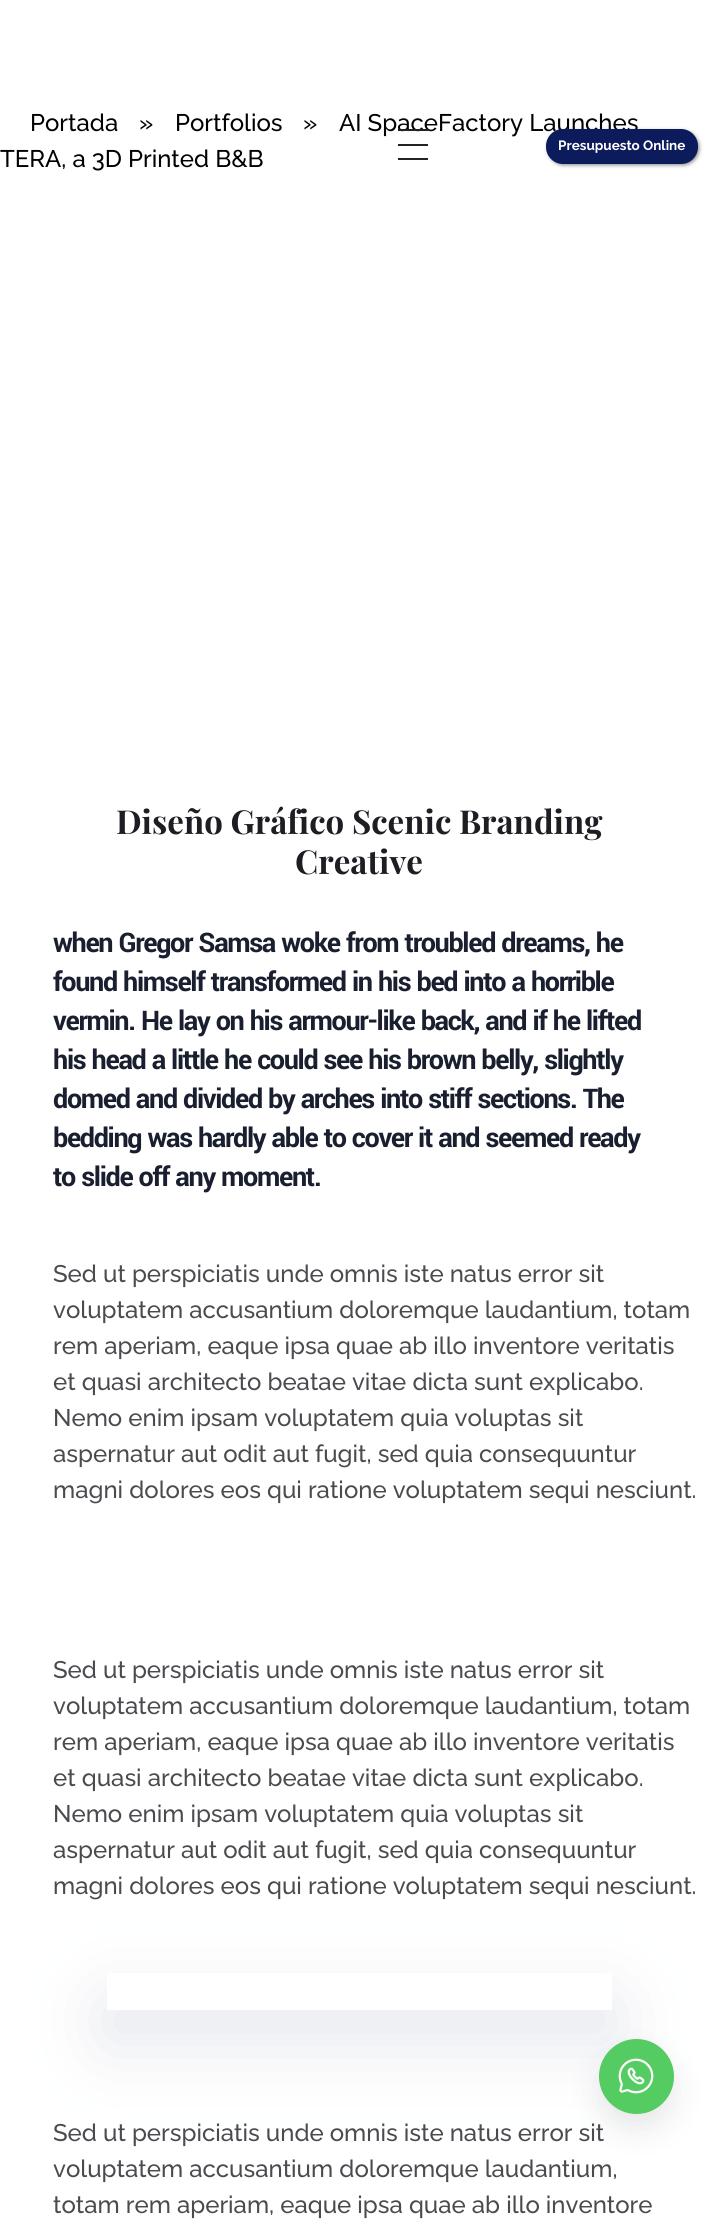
#include <cairo.h>
#include <math.h>
#include <stddef.h>


static void set_color(cairo_t *cr, unsigned color) {
    cairo_set_source_rgb(cr, (color >> 16) / 255.0, (color >> 8 & 255) / 255.0, (color & 255) / 255.0);
}

static void draw_text(cairo_t *cr, double x, double y, const char *s, const char *family, double size, int italic, int bold, unsigned color) {
    cairo_select_font_face(cr, family, italic ? CAIRO_FONT_SLANT_ITALIC : CAIRO_FONT_SLANT_NORMAL,
        bold ? CAIRO_FONT_WEIGHT_BOLD : CAIRO_FONT_WEIGHT_NORMAL);
    cairo_set_font_size(cr, size);
    set_color(cr, color);
    cairo_move_to(cr, x, y);
    cairo_show_text(cr, s);
}

static void draw_spaced(cairo_t *cr, double x, double y, const char *s, double letter, double word) {
    cairo_move_to(cr, x, y);
    while (*s) {
        char ch[5] = {0};
        int n = 0;
        do ch[n++] = *s++; while ((*s & 0xC0) == 0x80);
        cairo_show_text(cr, ch);
        cairo_rel_move_to(cr, letter + word * (*ch == ' '), 0);
    }
}

static void fill_rect(cairo_t *cr, double x, double y, double w, double h, unsigned color) {
    set_color(cr, color);
    cairo_rectangle(cr, x, y, w, h);
    cairo_fill(cr);
}

static void rounded_rect(cairo_t *cr, double x, double y, double w, double h, double r) {
    cairo_new_sub_path(cr);
    cairo_arc(cr, x + w - r, y + h - r, r, 0, M_PI / 2);
    cairo_arc(cr, x + r, y + h - r, r, M_PI / 2, M_PI);
    cairo_arc(cr, x + r, y + r, r, M_PI, 1.5 * M_PI);
    cairo_arc(cr, x + w - r, y + r, r, 1.5 * M_PI, 2 * M_PI);
    cairo_close_path(cr);
}

static void draw_shadow(cairo_t *cr, double x, double y, double w, double h, double r, double blur, double alpha) {
    cairo_push_group_with_content(cr, CAIRO_CONTENT_ALPHA);
    cairo_set_operator(cr, CAIRO_OPERATOR_SOURCE);
    for (int i = 15; i >= -15 && fmin(w, h) + blur * i / 3 > 0; i -= 2) {
        double e = blur * i / 6;
        cairo_set_source_rgba(cr, 0, 0, 0, alpha * erfc((i - 1) / 8.5) / 2);
        rounded_rect(cr, x - e, y - e, w + 2 * e, h + 2 * e, fmax(0, fmin(r + e + blur * .6, fmin(w, h) / 2 + e)));
        cairo_fill(cr);
    }
    cairo_pattern_t *soft = cairo_pop_group(cr);
    cairo_mask(cr, soft);
    cairo_pattern_destroy(soft);
}

static void draw_image(cairo_t *cr, const char *path, double x, double y, double w, double h) {
    cairo_surface_t *image = cairo_image_surface_create_from_png(path);
    cairo_save(cr);
    cairo_set_source_surface(cr, image, x, y);
    cairo_rectangle(cr, x, y, w, h);
    cairo_fill(cr);
    cairo_restore(cr);
    cairo_surface_destroy(image);
}

int main(void) {
    cairo_surface_t *surface = cairo_image_surface_create(CAIRO_FORMAT_RGB24, 718, 2238);
    cairo_t *cr = cairo_create(surface);
    cairo_font_options_t *options = cairo_font_options_create();
    cairo_font_options_set_hint_metrics(options, CAIRO_HINT_METRICS_OFF);
    cairo_font_options_set_hint_style(options, CAIRO_HINT_STYLE_NONE);
    cairo_set_font_options(cr, options);
    cairo_set_miter_limit(cr, 4);
    set_color(cr, 0xFFFFFF);
    cairo_paint(cr);
    draw_text(cr, 30, 131, "Portada", "Raleway Thin", 24, 0, 0, 0x000000);
    draw_text(cr, 139, 131, "»", "Raleway Thin", 24, 0, 0, 0x000000);
    draw_text(cr, 175, 131, "Portfolios", "Raleway Thin", 24, 0, 0, 0x000000);
    draw_text(cr, 303, 131, "»", "Raleway Thin", 24, 0, 0, 0x000000);
    draw_text(cr, 339, 131, "AI SpaceFactory Launches", "Raleway Thin", 24, 0, 0, 0x000000);
    draw_text(cr, 0, 167, "TERA, a 3D Printed B&B", "Raleway Thin", 24, 0, 0, 0x000000);
    fill_rect(cr, 398, 129, 30, 2, 0x222222);
    fill_rect(cr, 398, 144, 30, 2, 0x222222);
    fill_rect(cr, 398, 158, 30, 2, 0x222222);
    set_color(cr, 0x000000);
    draw_shadow(cr, 548, 131, 151, 34, 17, 2, 0.5);
    set_color(cr, 0x0C1B5C);
    rounded_rect(cr, 546, 129, 152, 35, 17);
    cairo_fill(cr);
    draw_text(cr, 558, 150, "Presupuesto Online", "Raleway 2 Thin", 13.5, 0, 0, 0xFFFFFF);
    draw_text(cr, 116, 834, "Diseño Gráfico Scenic Branding", "Playfair Display", 33, 0, 1, 0x1E1D23);
    draw_text(cr, 295, 874, "Creative", "Playfair Display", 33, 0, 1, 0x1E1D23);
    cairo_select_font_face(cr, "Yantramanav", CAIRO_FONT_SLANT_NORMAL, CAIRO_FONT_WEIGHT_BOLD);
    cairo_set_font_size(cr, 30);
    set_color(cr, 0x1A1F2F);
    draw_spaced(cr, 53, 952, "when Gregor Samsa woke from troubled dreams, he", -1.35, 0);
    draw_spaced(cr, 53, 991, "found himself transformed in his bed into a horrible", -1.35, 0);
    draw_spaced(cr, 53, 1030, "vermin. He lay on his armour-like back, and if he lifted", -1.35, 0);
    draw_spaced(cr, 53, 1069, "his head a little he could see his brown belly, slightly", -1.35, 0);
    draw_spaced(cr, 53, 1108, "domed and divided by arches into stiff sections. The", -1.35, 0);
    draw_spaced(cr, 53, 1147, "bedding was hardly able to cover it and seemed ready", -1.35, 0);
    draw_spaced(cr, 53, 1186, "to slide off any moment.", -1.35, 0);
    draw_text(cr, 53, 1282, "Sed ut perspiciatis unde omnis iste natus error sit", "Raleway Thin", 24, 0, 0, 0x4B4A4F);
    draw_text(cr, 53, 1318, "voluptatem accusantium doloremque laudantium, totam", "Raleway Thin", 24, 0, 0, 0x4B4A4F);
    draw_text(cr, 53, 1354, "rem aperiam, eaque ipsa quae ab illo inventore veritatis", "Raleway Thin", 24, 0, 0, 0x4B4A4F);
    draw_text(cr, 53, 1390, "et quasi architecto beatae vitae dicta sunt explicabo.", "Raleway Thin", 24, 0, 0, 0x4B4A4F);
    draw_text(cr, 53, 1426, "Nemo enim ipsam voluptatem quia voluptas sit", "Raleway Thin", 24, 0, 0, 0x4B4A4F);
    draw_text(cr, 53, 1462, "aspernatur aut odit aut fugit, sed quia consequuntur", "Raleway Thin", 24, 0, 0, 0x4B4A4F);
    draw_text(cr, 53, 1498, "magni dolores eos qui ratione voluptatem sequi nesciunt.", "Raleway Thin", 24, 0, 0, 0x4B4A4F);
    draw_text(cr, 53, 1678, "Sed ut perspiciatis unde omnis iste natus error sit", "Raleway Thin", 24, 0, 0, 0x4B4A4F);
    draw_text(cr, 53, 1714, "voluptatem accusantium doloremque laudantium, totam", "Raleway Thin", 24, 0, 0, 0x4B4A4F);
    draw_text(cr, 53, 1750, "rem aperiam, eaque ipsa quae ab illo inventore veritatis", "Raleway Thin", 24, 0, 0, 0x4B4A4F);
    draw_text(cr, 53, 1786, "et quasi architecto beatae vitae dicta sunt explicabo.", "Raleway Thin", 24, 0, 0, 0x4B4A4F);
    draw_text(cr, 53, 1822, "Nemo enim ipsam voluptatem quia voluptas sit", "Raleway Thin", 24, 0, 0, 0x4B4A4F);
    draw_text(cr, 53, 1858, "aspernatur aut odit aut fugit, sed quia consequuntur", "Raleway Thin", 24, 0, 0, 0x4B4A4F);
    draw_text(cr, 53, 1894, "magni dolores eos qui ratione voluptatem sequi nesciunt.", "Raleway Thin", 24, 0, 0, 0x4B4A4F);
    cairo_save(cr);
    cairo_set_fill_rule(cr, CAIRO_FILL_RULE_EVEN_ODD);
    cairo_new_path(cr);
    cairo_move_to(cr, 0, 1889);
    cairo_line_to(cr, 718, 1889);
    cairo_line_to(cr, 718, 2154);
    cairo_line_to(cr, 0, 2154);
    cairo_close_path(cr);
    cairo_move_to(cr, 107, 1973);
    cairo_line_to(cr, 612, 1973);
    cairo_line_to(cr, 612, 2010);
    cairo_line_to(cr, 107, 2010);
    cairo_close_path(cr);
    cairo_clip(cr);
    set_color(cr, 0x7886A2);
    draw_shadow(cr, 107, 2003, 505, 37, 0, 37.5, 0.2);
    cairo_restore(cr);
    draw_text(cr, 53, 2141, "Sed ut perspiciatis unde omnis iste natus error sit", "Raleway Thin", 24, 0, 0, 0x4B4A4F);
    draw_text(cr, 53, 2177, "voluptatem accusantium doloremque laudantium,", "Raleway Thin", 24, 0, 0, 0x4B4A4F);
    draw_text(cr, 53, 2213, "totam rem aperiam, eaque ipsa quae ab illo inventore", "Raleway Thin", 24, 0, 0, 0x4B4A4F);
    set_color(cr, 0x161C2D);
    draw_shadow(cr, 599, 2054, 75, 75, 37.5, 15, 0.1);
    set_color(cr, 0x54CC61);
    cairo_arc(cr, 636.5, 2076.5, 37.5, 0, 2 * M_PI);
    cairo_fill(cr);
    draw_image(cr, "assets/img1.png", 618, 2058, 36, 36);
    cairo_surface_write_to_png(surface, "output.png");
    cairo_font_options_destroy(options);
    cairo_destroy(cr);
    cairo_surface_destroy(surface);
    return 0;
}
